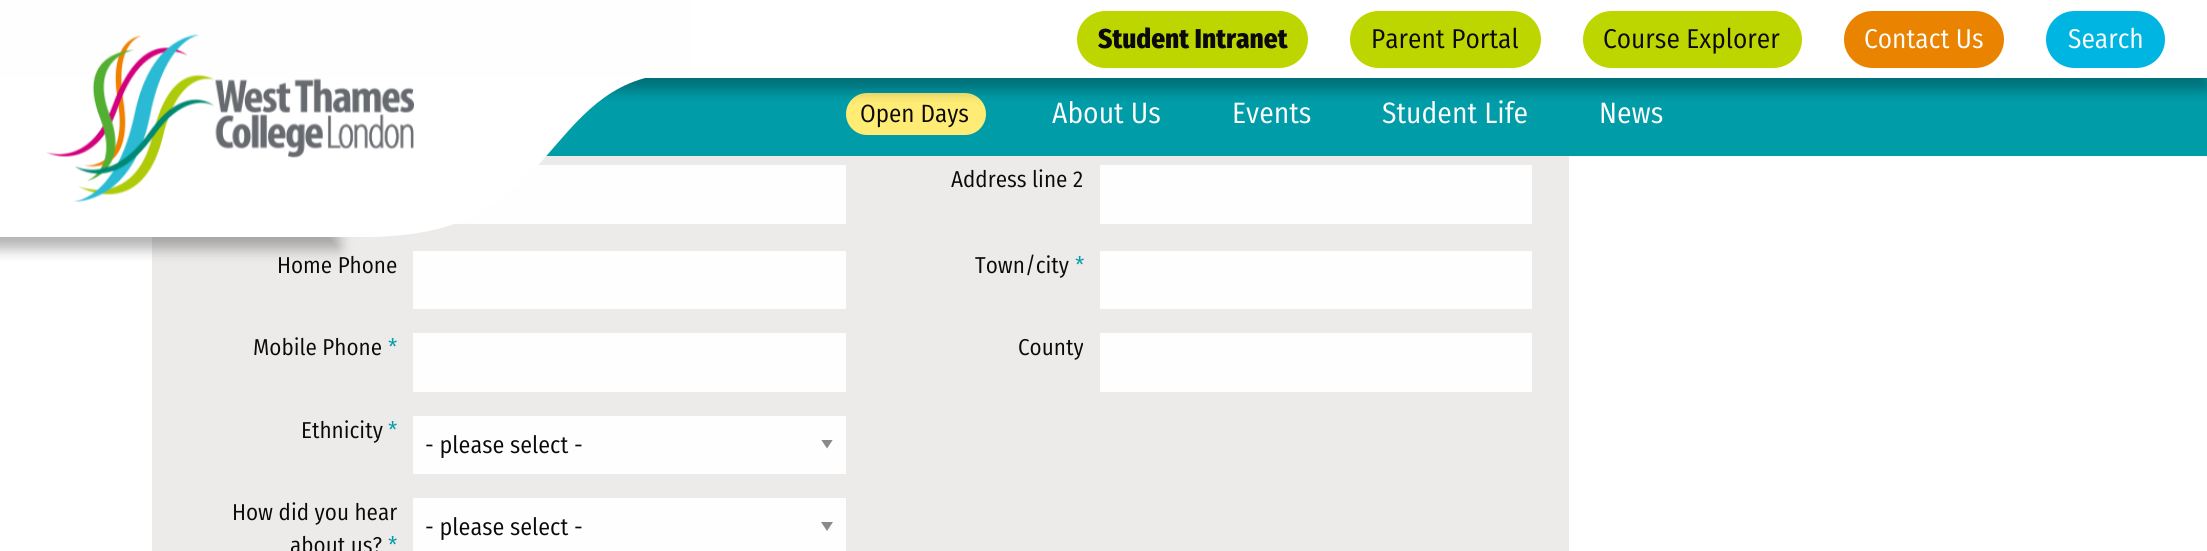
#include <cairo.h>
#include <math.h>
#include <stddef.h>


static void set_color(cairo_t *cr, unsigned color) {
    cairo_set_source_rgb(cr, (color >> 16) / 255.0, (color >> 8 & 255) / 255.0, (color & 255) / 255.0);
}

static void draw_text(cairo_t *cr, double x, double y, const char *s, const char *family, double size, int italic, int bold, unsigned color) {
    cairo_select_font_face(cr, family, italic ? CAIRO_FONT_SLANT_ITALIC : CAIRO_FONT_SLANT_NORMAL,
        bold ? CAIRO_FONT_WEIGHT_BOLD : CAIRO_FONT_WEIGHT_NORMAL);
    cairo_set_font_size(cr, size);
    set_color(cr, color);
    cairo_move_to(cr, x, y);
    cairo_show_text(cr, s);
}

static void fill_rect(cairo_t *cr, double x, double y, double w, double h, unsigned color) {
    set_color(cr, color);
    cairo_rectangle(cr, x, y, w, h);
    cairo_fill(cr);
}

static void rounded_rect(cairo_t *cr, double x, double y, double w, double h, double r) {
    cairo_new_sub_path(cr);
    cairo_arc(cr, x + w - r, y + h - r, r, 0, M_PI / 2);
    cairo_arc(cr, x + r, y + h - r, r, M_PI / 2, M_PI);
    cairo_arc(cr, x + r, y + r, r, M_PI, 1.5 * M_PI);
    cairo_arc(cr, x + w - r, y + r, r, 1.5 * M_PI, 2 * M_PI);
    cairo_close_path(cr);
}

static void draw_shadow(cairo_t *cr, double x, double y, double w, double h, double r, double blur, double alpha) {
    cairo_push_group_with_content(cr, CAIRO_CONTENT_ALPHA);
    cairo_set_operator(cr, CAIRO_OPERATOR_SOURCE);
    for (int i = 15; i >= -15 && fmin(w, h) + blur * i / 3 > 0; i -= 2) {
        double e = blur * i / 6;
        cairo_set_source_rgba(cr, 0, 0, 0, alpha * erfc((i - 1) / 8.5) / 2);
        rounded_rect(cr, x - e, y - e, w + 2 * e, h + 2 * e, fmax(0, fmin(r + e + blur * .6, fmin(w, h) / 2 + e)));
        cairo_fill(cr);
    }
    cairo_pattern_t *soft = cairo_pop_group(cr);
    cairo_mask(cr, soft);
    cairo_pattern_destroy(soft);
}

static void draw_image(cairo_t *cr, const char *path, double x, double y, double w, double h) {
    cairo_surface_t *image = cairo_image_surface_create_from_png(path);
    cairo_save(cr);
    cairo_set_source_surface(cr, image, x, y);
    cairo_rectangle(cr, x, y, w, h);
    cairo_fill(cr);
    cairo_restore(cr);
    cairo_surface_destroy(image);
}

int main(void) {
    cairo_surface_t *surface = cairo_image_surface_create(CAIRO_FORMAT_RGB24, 2207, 551);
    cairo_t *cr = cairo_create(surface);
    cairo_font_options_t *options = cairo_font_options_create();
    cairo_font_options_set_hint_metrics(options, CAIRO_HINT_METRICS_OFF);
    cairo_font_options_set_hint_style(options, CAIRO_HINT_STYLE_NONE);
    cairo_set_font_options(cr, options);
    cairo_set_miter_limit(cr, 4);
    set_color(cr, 0xFFFFFF);
    cairo_paint(cr);
    fill_rect(cr, 152, 156, 1417, 395, 0xECEBEA);
    set_color(cr, 0x000000);
    draw_shadow(cr, -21, 12, 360, 237, 0, 7, 0.3);
    fill_rect(cr, 0, 78, 337, 159, 0xFFFFFF);
    fill_rect(cr, 546, 78, 1661, 78, 0x009DA9);
    set_color(cr, 0xFFEC74);
    rounded_rect(cr, 846, 93, 140, 42, 21);
    cairo_fill(cr);
    set_color(cr, 0x000000);
    draw_shadow(cr, 368, 12, 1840, 78, 0, 7, 0.3);
    fill_rect(cr, 690, 0, 1517, 78, 0xFFFFFF);
    fill_rect(cr, 454, 165, 392, 59, 0xFEFEFE);
    cairo_save(cr);
    cairo_rectangle(cr, 336, 65, 368, 172);
    cairo_clip(cr);
    set_color(cr, 0xFFFFFF);
    cairo_set_fill_rule(cr, CAIRO_FILL_RULE_EVEN_ODD);
    cairo_new_path(cr);
    cairo_move_to(cr, 337, 238);
    cairo_line_to(cr, 337, 64);
    cairo_line_to(cr, 703, 64);
    cairo_line_to(cr, 703, 72);
    cairo_curve_to(cr, 685, 73, 667, 72, 649, 77);
    cairo_curve_to(cr, 594, 90, 567, 135, 531, 173);
    cairo_curve_to(cr, 516, 188, 500, 202, 481, 212);
    cairo_curve_to(cr, 436, 237, 387, 237, 337, 238);
    cairo_close_path(cr);
    cairo_fill(cr);
    cairo_restore(cr);
    fill_rect(cr, 0, 0, 690, 78, 0xFEFEFE);
    draw_image(cr, "assets/img1.png", 46, 34, 368, 168);
    set_color(cr, 0xBED600);
    rounded_rect(cr, 1077, 11, 231, 57, 28.5);
    cairo_fill(cr);
    draw_text(cr, 1098, 48, "Student Intranet", "Fira Sans Condensed ExtraBold", 27.25, 0, 0, 0x0A0A0A);
    set_color(cr, 0xBED600);
    rounded_rect(cr, 1350, 11, 191, 57, 28.5);
    cairo_fill(cr);
    draw_text(cr, 1371, 48, "Parent Portal", "Fira Sans Condensed", 27.25, 0, 0, 0x0A0A0A);
    set_color(cr, 0xBED600);
    rounded_rect(cr, 1583, 11, 219, 57, 28.5);
    cairo_fill(cr);
    draw_text(cr, 1603, 48, "Course Explorer", "Fira Sans Condensed", 27.25, 0, 0, 0x0A0A0A);
    set_color(cr, 0xE98300);
    rounded_rect(cr, 1844, 11, 160, 57, 28.5);
    cairo_fill(cr);
    draw_text(cr, 1864, 48, "Contact Us", "Fira Sans Condensed", 27.25, 0, 0, 0xFEFEFE);
    set_color(cr, 0x00B5E2);
    rounded_rect(cr, 2046, 11, 119, 57, 28.5);
    cairo_fill(cr);
    draw_text(cr, 2068, 48, "Search", "Fira Sans Condensed", 27.25, 0, 0, 0xFEFEFE);
    draw_text(cr, 860, 122, "Open Days", "Fira Sans Condensed", 25, 0, 0, 0x0A0A0A);
    draw_text(cr, 1052, 123, "About Us", "Fira Sans Condensed", 29.5, 0, 0, 0xFEFEFE);
    draw_text(cr, 1232, 123, "Events", "Fira Sans Condensed", 29.5, 0, 0, 0xFEFEFE);
    draw_text(cr, 1382, 123, "Student Life", "Fira Sans Condensed", 29.5, 0, 0, 0xFEFEFE);
    draw_text(cr, 1599, 123, "News", "Fira Sans Condensed", 29.5, 0, 0, 0xFEFEFE);
    draw_text(cr, 951, 187, "Address line 2", "Fira Sans Condensed", 23, 0, 0, 0x0A0A0A);
    fill_rect(cr, 1100, 165, 432, 59, 0xFEFEFE);
    draw_text(cr, 277, 273, "Home Phone", "Fira Sans Condensed", 23, 0, 0, 0x0A0A0A);
    fill_rect(cr, 413, 251, 433, 58, 0xFEFEFE);
    draw_text(cr, 975, 273, "Town/city", "Fira Sans Condensed", 23, 0, 0, 0x0A0A0A);
    draw_text(cr, 1075, 273, "*", "Fira Sans Condensed", 23, 0, 0, 0x009DA9);
    fill_rect(cr, 1100, 251, 432, 58, 0xFEFEFE);
    draw_text(cr, 253, 355, "Mobile Phone", "Fira Sans Condensed", 23, 0, 0, 0x0A0A0A);
    draw_text(cr, 388, 355, "*", "Fira Sans Condensed", 23, 0, 0, 0x009DA9);
    fill_rect(cr, 413, 333, 433, 59, 0xFEFEFE);
    draw_text(cr, 1018, 355, "County", "Fira Sans Condensed", 23, 0, 0, 0x0A0A0A);
    fill_rect(cr, 1100, 333, 432, 59, 0xFEFEFE);
    draw_text(cr, 301, 438, "Ethnicity", "Fira Sans Condensed", 23, 0, 0, 0x0A0A0A);
    draw_text(cr, 388, 438, "*", "Fira Sans Condensed", 23, 0, 0, 0x009DA9);
    fill_rect(cr, 413, 416, 433, 58, 0xFEFEFE);
    cairo_save(cr);
    cairo_rectangle(cr, 821, 440, 13, 9);
    cairo_clip(cr);
    set_color(cr, 0x8A8A8A);
    cairo_new_path(cr);
    cairo_move_to(cr, 821, 439.5);
    cairo_line_to(cr, 833, 439.5);
    cairo_line_to(cr, 827, 448.5);
    cairo_close_path(cr);
    cairo_fill(cr);
    cairo_restore(cr);
    draw_text(cr, 425, 453, "- please select -", "Fira Sans Condensed", 24, 0, 0, 0x0A0A0A);
    draw_text(cr, 232, 520, "How did you hear", "Fira Sans Condensed", 23, 0, 0, 0x0A0A0A);
    draw_text(cr, 290, 553, "about us?", "Fira Sans Condensed", 23, 0, 0, 0x0A0A0A);
    draw_text(cr, 388, 553, "*", "Fira Sans Condensed", 23, 0, 0, 0x009DA9);
    fill_rect(cr, 413, 498, 433, 53, 0xFEFEFE);
    set_color(cr, 0x8A8A8A);
    cairo_new_path(cr);
    cairo_move_to(cr, 821, 522);
    cairo_line_to(cr, 833, 522);
    cairo_line_to(cr, 827, 531);
    cairo_close_path(cr);
    cairo_fill(cr);
    draw_text(cr, 425, 535, "- please select -", "Fira Sans Condensed", 24, 0, 0, 0x0A0A0A);
    cairo_surface_write_to_png(surface, "output.png");
    cairo_font_options_destroy(options);
    cairo_destroy(cr);
    cairo_surface_destroy(surface);
    return 0;
}
